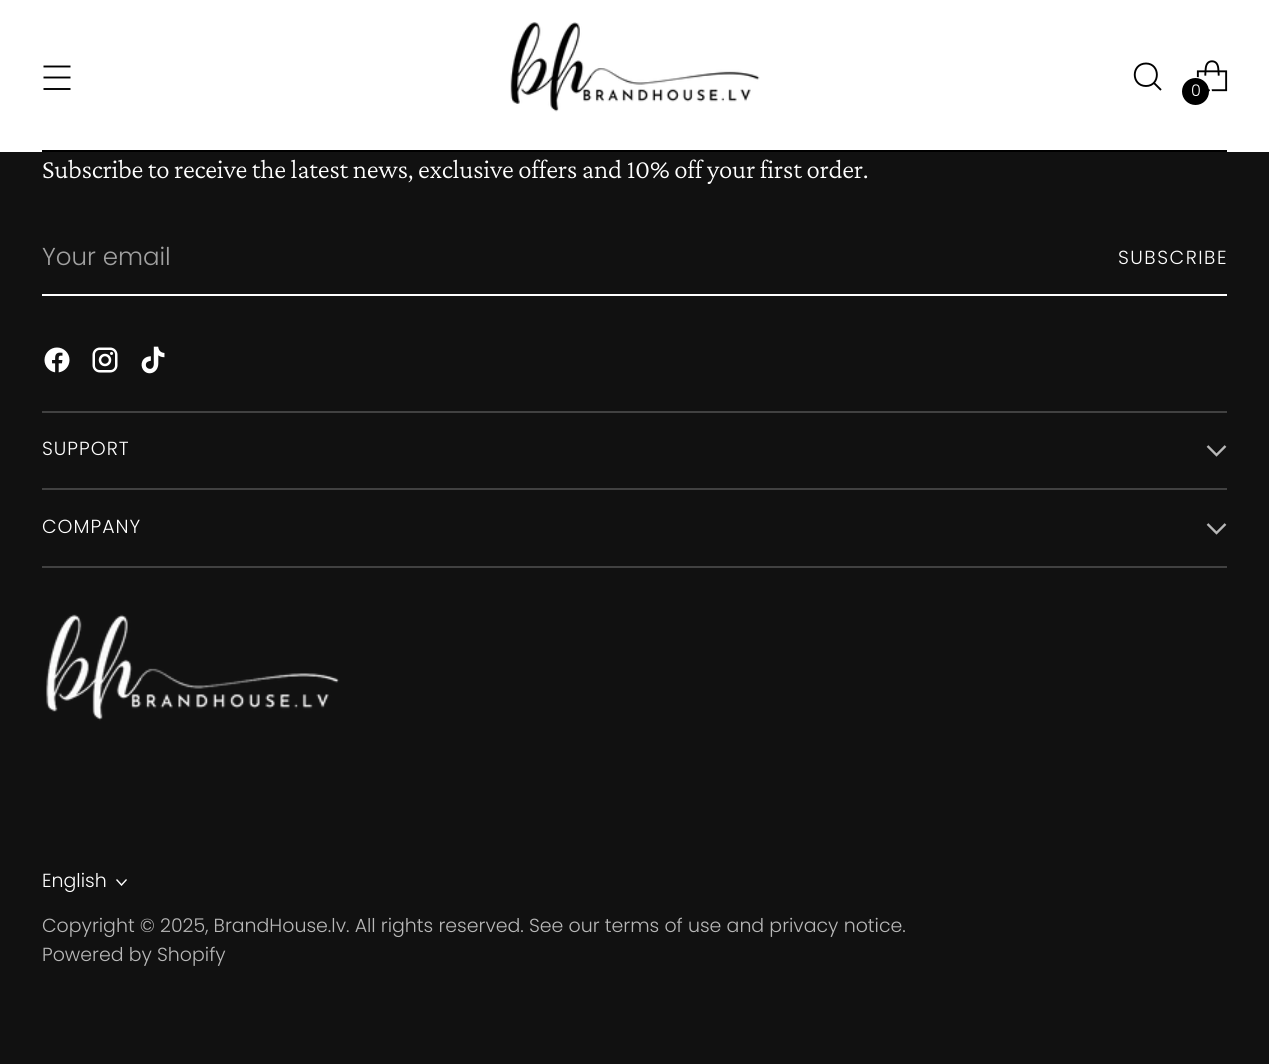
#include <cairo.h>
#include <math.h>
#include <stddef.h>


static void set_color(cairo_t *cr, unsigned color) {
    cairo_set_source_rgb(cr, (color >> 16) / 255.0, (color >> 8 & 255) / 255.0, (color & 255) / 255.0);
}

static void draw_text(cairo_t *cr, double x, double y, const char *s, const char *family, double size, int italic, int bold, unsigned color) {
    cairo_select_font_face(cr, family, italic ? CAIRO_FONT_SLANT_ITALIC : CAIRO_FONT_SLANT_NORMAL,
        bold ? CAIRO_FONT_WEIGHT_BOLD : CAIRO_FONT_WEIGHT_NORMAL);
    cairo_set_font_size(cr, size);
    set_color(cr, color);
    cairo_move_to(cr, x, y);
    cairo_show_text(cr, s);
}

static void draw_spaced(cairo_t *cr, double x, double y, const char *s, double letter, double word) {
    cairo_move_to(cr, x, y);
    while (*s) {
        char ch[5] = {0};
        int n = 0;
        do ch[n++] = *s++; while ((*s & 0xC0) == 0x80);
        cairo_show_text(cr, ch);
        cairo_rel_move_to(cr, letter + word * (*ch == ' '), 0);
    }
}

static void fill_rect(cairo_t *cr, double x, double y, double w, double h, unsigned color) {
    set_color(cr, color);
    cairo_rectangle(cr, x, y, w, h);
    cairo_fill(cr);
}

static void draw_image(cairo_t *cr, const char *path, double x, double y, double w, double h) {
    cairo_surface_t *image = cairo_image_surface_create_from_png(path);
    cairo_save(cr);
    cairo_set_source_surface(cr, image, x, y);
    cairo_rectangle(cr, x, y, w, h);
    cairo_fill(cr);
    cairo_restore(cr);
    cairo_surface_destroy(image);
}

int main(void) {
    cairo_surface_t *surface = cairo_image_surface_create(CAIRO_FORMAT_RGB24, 1269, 1064);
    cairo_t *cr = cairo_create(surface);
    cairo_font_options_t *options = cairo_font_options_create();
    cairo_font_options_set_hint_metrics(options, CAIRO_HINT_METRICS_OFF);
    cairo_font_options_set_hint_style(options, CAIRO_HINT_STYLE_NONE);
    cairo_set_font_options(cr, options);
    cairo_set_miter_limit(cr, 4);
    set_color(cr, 0x111111);
    cairo_paint(cr);
    fill_rect(cr, 0, 0, 1269, 152, 0xFFFFFF);
    fill_rect(cr, 42, 150, 1185, 2, 0x000000);
    cairo_new_path(cr);
    cairo_move_to(cr, 43.5, 77.5);
    cairo_line_to(cr, 70.5, 77.5);
    cairo_move_to(cr, 43.5, 66.5);
    cairo_line_to(cr, 70.5, 66.5);
    cairo_move_to(cr, 43.5, 89);
    cairo_line_to(cr, 70.5, 89);
    cairo_set_line_width(cr, 1.9);
    cairo_stroke(cr);
    draw_image(cr, "assets/img1.png", 510, 22, 250, 90);
    cairo_new_path(cr);
    cairo_move_to(cr, 1146, 86);
    cairo_curve_to(cr, 1160.5, 86, 1160.5, 63.5, 1146, 63.5);
    cairo_curve_to(cr, 1131, 63.5, 1131, 86, 1146, 86);
    cairo_close_path(cr);
    cairo_set_line_cap(cr, CAIRO_LINE_CAP_ROUND);
    cairo_stroke(cr);
    cairo_new_path(cr);
    cairo_move_to(cr, 1154, 83);
    cairo_line_to(cr, 1161, 90);
    cairo_set_line_cap(cr, CAIRO_LINE_CAP_BUTT);
    cairo_stroke(cr);
    draw_image(cr, "assets/img2.png", 1196, 60, 32, 32);
    cairo_arc(cr, 1196.5, 92.5, 14.5, 0, 2 * M_PI);
    set_color(cr, 0xFFFFFF);
    cairo_set_line_width(cr, 2);
    cairo_stroke(cr);
    set_color(cr, 0x000000);
    cairo_arc(cr, 1195.5, 91.5, 13.5, 0, 2 * M_PI);
    cairo_fill(cr);
    draw_text(cr, 1191, 96, "0", "Poppins Light", 16, 0, 0, 0xFFFFFF);
    fill_rect(cr, 42, 411, 1185, 2, 0x414141);
    cairo_select_font_face(cr, "Crimson Pro Light", CAIRO_FONT_SLANT_NORMAL, CAIRO_FONT_WEIGHT_NORMAL);
    cairo_set_font_size(cr, 27.1);
    set_color(cr, 0xFFFFFF);
    draw_spaced(cr, 42, 178, "Subscribe to receive the latest news, exclusive offers and 10% off your first order.", -0.27, 0);
    fill_rect(cr, 42, 294, 1185, 2, 0xFFFFFF);
    draw_text(cr, 42, 265, "Your email", "Poppins Light", 24.5, 0, 0, 0xA0A0A0);
    cairo_set_font_size(cr, 18.95);
    set_color(cr, 0xFFFFFF);
    draw_spaced(cr, 1118, 264, "SUBSCRIBE", 1.5, 0);
    draw_image(cr, "assets/img3.png", 44, 347, 26, 26);
    draw_image(cr, "assets/img4.png", 92, 347, 26, 26);
    draw_image(cr, "assets/img5.png", 141, 346, 24, 28);
    fill_rect(cr, 42, 488, 1185, 2, 0x414141);
    set_color(cr, 0xFFFFFF);
    draw_spaced(cr, 42, 455, "SUPPORT", 1, 0);
    cairo_new_path(cr);
    cairo_move_to(cr, 1207.5, 446);
    cairo_line_to(cr, 1216.5, 455);
    cairo_line_to(cr, 1225.5, 446);
    set_color(cr, 0xB8B8B8);
    cairo_set_line_width(cr, 2.4);
    cairo_stroke(cr);
    fill_rect(cr, 42, 566, 1185, 2, 0x414141);
    set_color(cr, 0xFFFFFF);
    draw_spaced(cr, 42, 533, "COMPANY", 1, 0);
    cairo_new_path(cr);
    cairo_move_to(cr, 1207.5, 524);
    cairo_line_to(cr, 1216.5, 533);
    cairo_line_to(cr, 1225.5, 524);
    set_color(cr, 0xB8B8B8);
    cairo_stroke(cr);
    draw_image(cr, "assets/img6.png", 46, 614, 294, 107);
    draw_text(cr, 42, 887, "English", "Poppins Light", 18.95, 0, 0, 0xFFFFFF);
    cairo_new_path(cr);
    cairo_move_to(cr, 116.5, 879.5);
    cairo_line_to(cr, 121.5, 885);
    cairo_line_to(cr, 126.5, 879.5);
    cairo_set_line_width(cr, 1.4);
    cairo_stroke(cr);
    draw_text(cr, 42, 932, "Copyright © 2025, BrandHouse.lv. All rights reserved. See our terms of use and privacy notice.", "Poppins Light", 18.95, 0, 0, 0xB8B8B8);
    draw_text(cr, 42, 961, "Powered by Shopify", "Poppins Light", 18.95, 0, 0, 0xB8B8B8);
    cairo_surface_write_to_png(surface, "output.png");
    cairo_font_options_destroy(options);
    cairo_destroy(cr);
    cairo_surface_destroy(surface);
    return 0;
}
